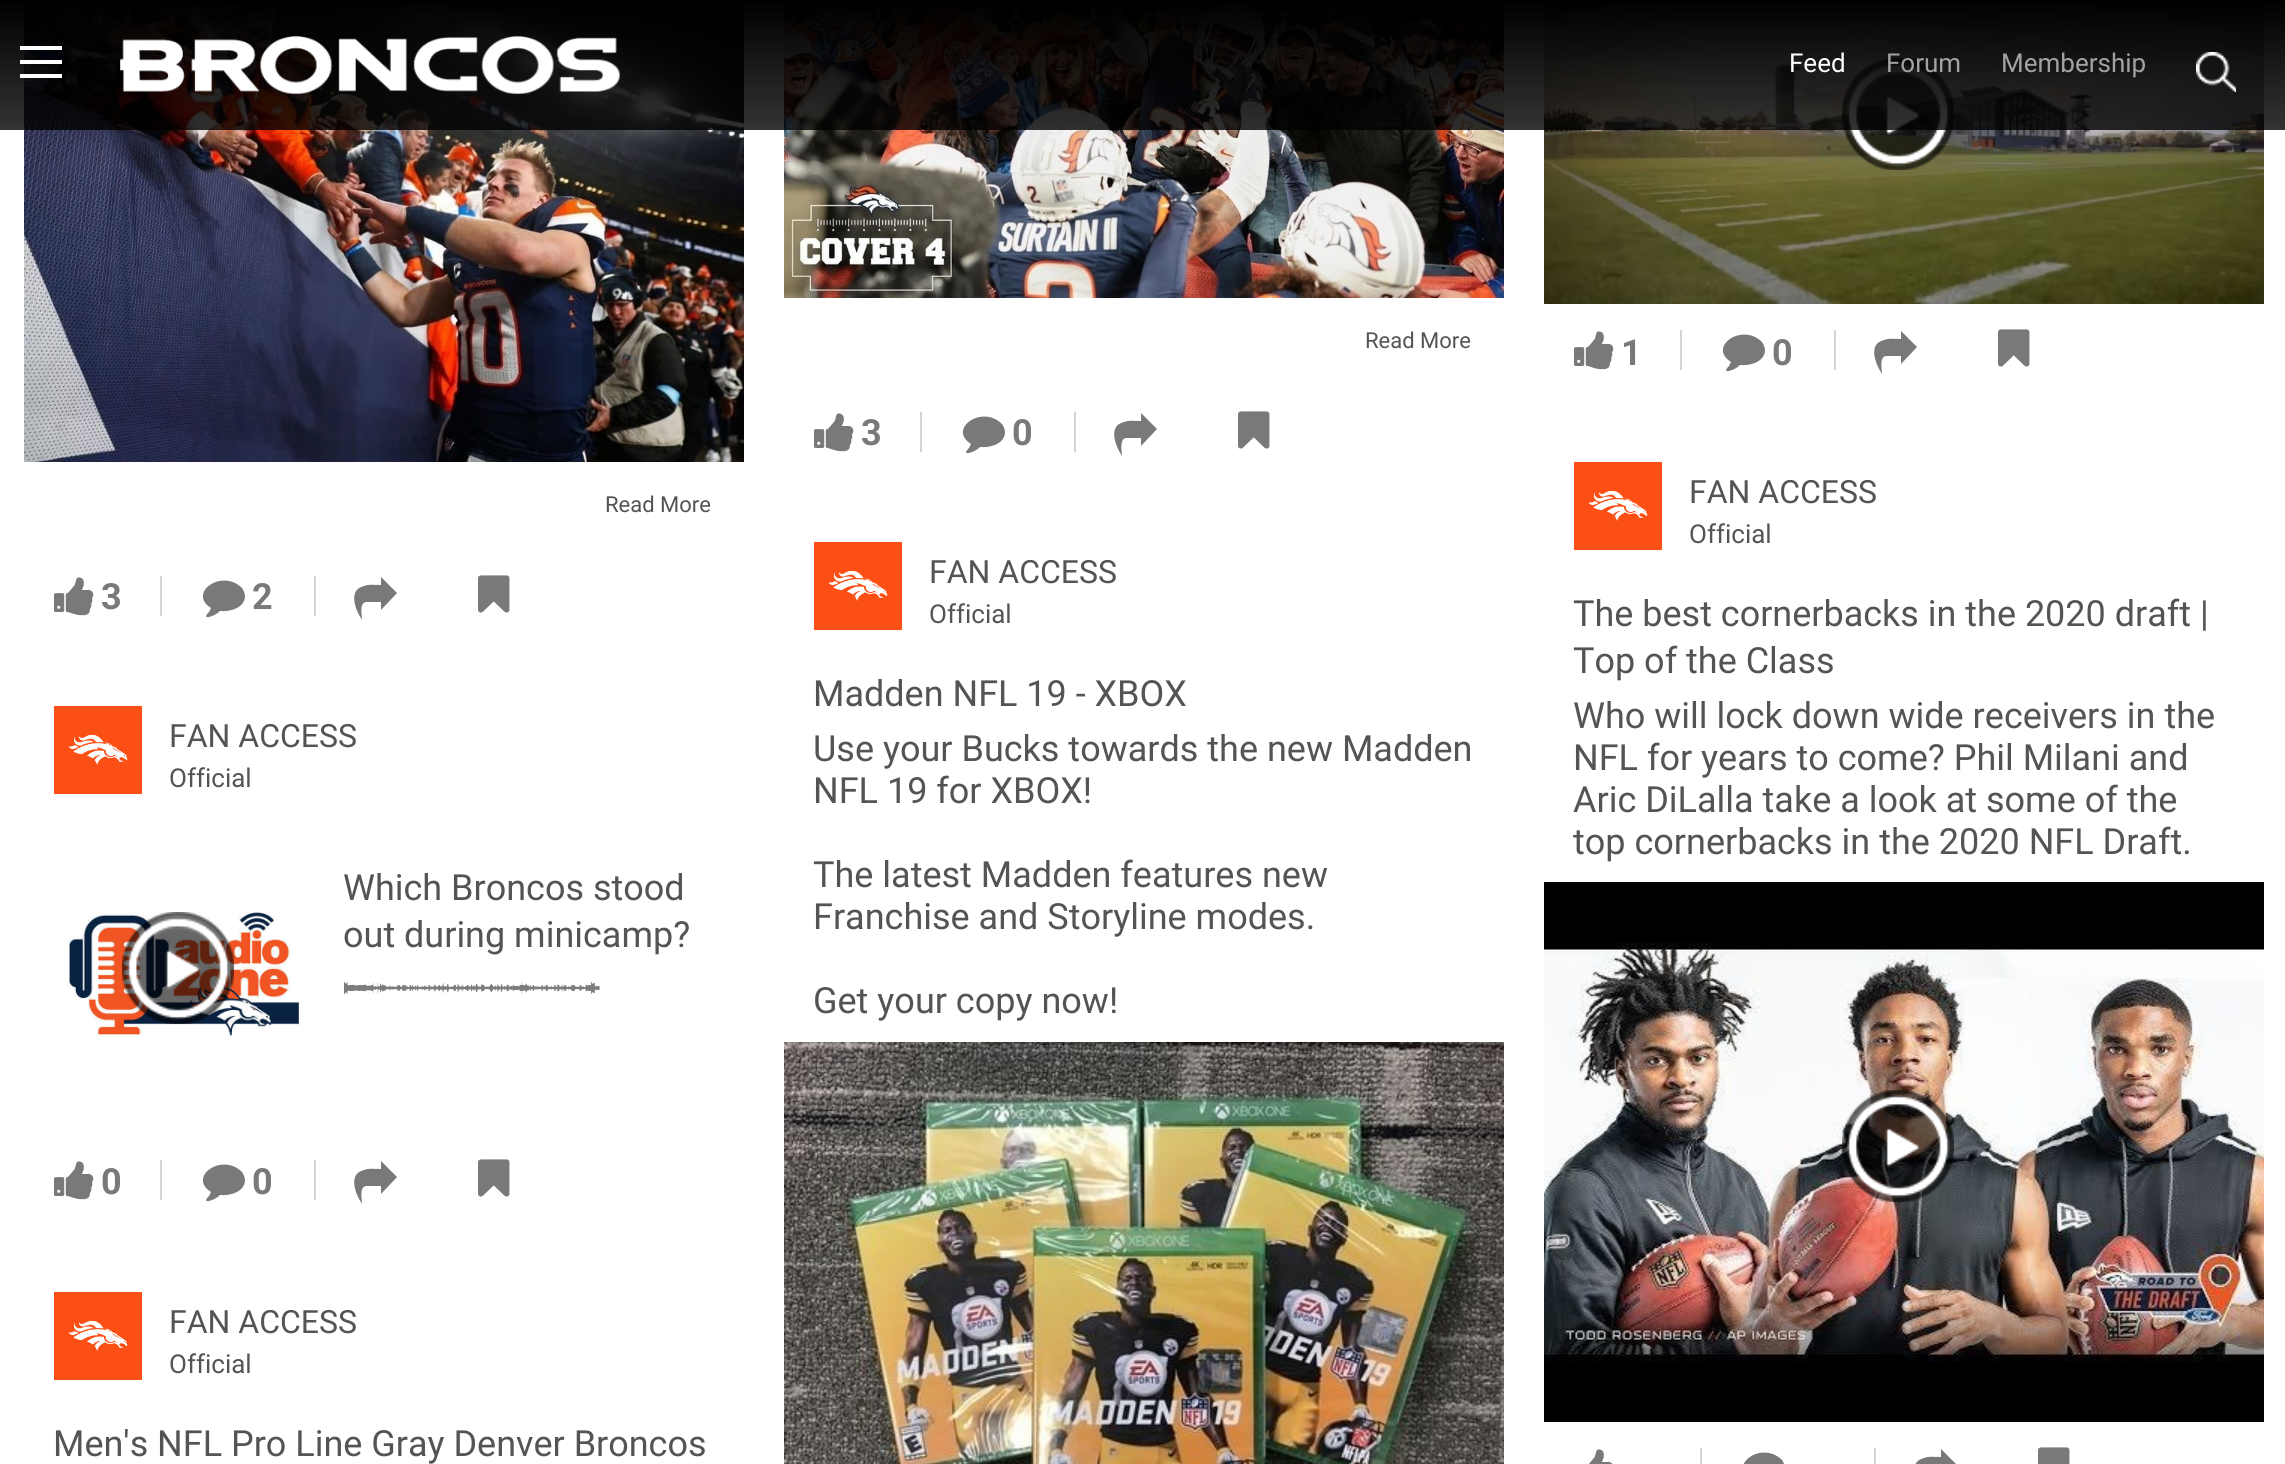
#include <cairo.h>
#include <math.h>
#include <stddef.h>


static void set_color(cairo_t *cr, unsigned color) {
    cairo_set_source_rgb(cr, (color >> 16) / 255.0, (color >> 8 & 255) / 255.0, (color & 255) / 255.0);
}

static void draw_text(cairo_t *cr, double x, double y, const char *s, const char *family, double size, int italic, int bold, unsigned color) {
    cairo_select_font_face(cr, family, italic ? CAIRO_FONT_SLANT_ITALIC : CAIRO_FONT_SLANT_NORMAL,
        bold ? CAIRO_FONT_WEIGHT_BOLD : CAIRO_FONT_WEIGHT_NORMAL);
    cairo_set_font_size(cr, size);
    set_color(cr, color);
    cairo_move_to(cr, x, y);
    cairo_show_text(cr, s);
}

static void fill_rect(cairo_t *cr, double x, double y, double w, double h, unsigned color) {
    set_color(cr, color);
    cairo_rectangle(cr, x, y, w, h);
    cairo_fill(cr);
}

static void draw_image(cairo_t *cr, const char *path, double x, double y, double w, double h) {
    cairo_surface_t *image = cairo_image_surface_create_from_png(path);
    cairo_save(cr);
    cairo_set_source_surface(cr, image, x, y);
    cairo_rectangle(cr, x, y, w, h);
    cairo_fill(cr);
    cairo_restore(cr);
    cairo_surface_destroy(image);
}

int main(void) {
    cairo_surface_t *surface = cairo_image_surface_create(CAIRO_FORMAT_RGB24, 2285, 1464);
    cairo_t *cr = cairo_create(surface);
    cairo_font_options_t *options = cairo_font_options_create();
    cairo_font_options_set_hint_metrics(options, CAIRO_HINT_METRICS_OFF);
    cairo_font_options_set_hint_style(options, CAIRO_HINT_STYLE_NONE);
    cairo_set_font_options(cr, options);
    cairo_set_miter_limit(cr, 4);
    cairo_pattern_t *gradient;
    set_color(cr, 0xFFFFFF);
    cairo_paint(cr);
    draw_image(cr, "assets/img3.png", 784, 4, 720, 294);
    draw_image(cr, "assets/img6.png", 1544, 4, 720, 300);
    draw_image(cr, "assets/img7.png", 1842, 58, 112, 112);
    draw_image(cr, "assets/img8.png", 24, 4, 720, 458);
    gradient = cairo_pattern_create_linear(1143, 130, 1143, 0);
    cairo_pattern_add_color_stop_rgba(gradient, 0, 0, 0, 0, 0.02);
    cairo_pattern_add_color_stop_rgba(gradient, 0, 0, 0, 0, 0.8);
    cairo_pattern_add_color_stop_rgba(gradient, 1, 0, 0, 0, 1);
    cairo_set_source(cr, gradient);
    cairo_pattern_destroy(gradient);
    cairo_rectangle(cr, 0, 0, 2285, 130);
    cairo_fill(cr);
    fill_rect(cr, 20, 46, 42, 4, 0xFFFFFF);
    fill_rect(cr, 20, 60, 42, 4, 0xFFFFFF);
    fill_rect(cr, 20, 74, 42, 4, 0xFFFFFF);
    draw_image(cr, "assets/img1.png", 120, 36, 500, 58);
    draw_text(cr, 1789, 72, "Feed", "Roboto", 26, 0, 0, 0xFFFFFF);
    draw_text(cr, 1886, 72, "Forum", "Roboto", 26, 0, 0, 0xA2A2A2);
    draw_text(cr, 2001, 72, "Membership", "Roboto", 26, 0, 0, 0xA2A2A2);
    draw_image(cr, "assets/img2.png", 2196, 52, 40, 40);
    draw_text(cr, 1365, 348, "Read More", "Roboto", 22, 0, 0, 0x545454);
    fill_rect(cr, 920, 412, 2, 40, 0xD4D4D4);
    draw_image(cr, "assets/img4.png", 814, 413, 40, 39);
    draw_text(cr, 861, 445, "3", "Roboto", 36, 0, 1, 0x7A787A);
    cairo_new_path(cr);
    cairo_move_to(cr, 1002, 424);
    cairo_curve_to(cr, 1004, 427, 1005, 430, 1005, 433);
    cairo_curve_to(cr, 1004, 444, 990, 448, 980, 447);
    cairo_curve_to(cr, 977, 450, 973, 452, 969, 453);
    cairo_curve_to(cr, 963, 454, 968, 449, 969, 448);
    cairo_line_to(cr, 971, 444);
    cairo_curve_to(cr, 947, 429, 982, 404, 1002, 424);
    cairo_close_path(cr);
    cairo_fill(cr);
    draw_text(cr, 1012, 445, "0", "Roboto", 36, 0, 1, 0x7A787A);
    fill_rect(cr, 1074, 412, 2, 40, 0xD4D4D4);
    set_color(cr, 0x7A787A);
    cairo_new_path(cr);
    cairo_move_to(cr, 1141, 421);
    cairo_curve_to(cr, 1136, 421, 1129, 420, 1124, 422);
    cairo_curve_to(cr, 1107, 426, 1116, 447, 1122, 456);
    cairo_curve_to(cr, 1122, 452, 1119, 439, 1126, 438);
    cairo_line_to(cr, 1141, 438);
    cairo_line_to(cr, 1141, 446);
    cairo_line_to(cr, 1157, 429);
    cairo_line_to(cr, 1141, 413);
    cairo_close_path(cr);
    cairo_fill(cr);
    draw_image(cr, "assets/img5.png", 1238, 411, 32, 38);
    fill_rect(cr, 1680, 330, 2, 40, 0xD4D4D4);
    draw_image(cr, "assets/img4.png", 1574, 331, 40, 39);
    draw_text(cr, 1621, 365, "1", "Roboto", 36, 0, 1, 0x7A787A);
    cairo_new_path(cr);
    cairo_move_to(cr, 1762, 342);
    cairo_curve_to(cr, 1764, 345, 1765, 348, 1765, 351);
    cairo_curve_to(cr, 1764, 362, 1750, 366, 1740, 365);
    cairo_curve_to(cr, 1737, 368, 1733, 370, 1729, 371);
    cairo_curve_to(cr, 1723, 372, 1728, 367, 1729, 366);
    cairo_line_to(cr, 1731, 362);
    cairo_curve_to(cr, 1707, 347, 1742, 322, 1762, 342);
    cairo_close_path(cr);
    cairo_fill(cr);
    draw_text(cr, 1772, 365, "0", "Roboto", 36, 0, 1, 0x7A787A);
    fill_rect(cr, 1834, 330, 2, 40, 0xD4D4D4);
    set_color(cr, 0x7A787A);
    cairo_new_path(cr);
    cairo_move_to(cr, 1901, 339);
    cairo_curve_to(cr, 1896, 339, 1889, 338, 1884, 340);
    cairo_curve_to(cr, 1867, 344, 1876, 365, 1882, 374);
    cairo_curve_to(cr, 1882, 370, 1879, 357, 1886, 356);
    cairo_line_to(cr, 1901, 356);
    cairo_line_to(cr, 1901, 364);
    cairo_line_to(cr, 1917, 347);
    cairo_line_to(cr, 1901, 331);
    cairo_close_path(cr);
    cairo_fill(cr);
    draw_image(cr, "assets/img5.png", 1998, 329, 32, 38);
    draw_text(cr, 605, 512, "Read More", "Roboto", 22, 0, 0, 0x545454);
    fill_rect(cr, 160, 576, 2, 40, 0xD4D4D4);
    draw_image(cr, "assets/img4.png", 54, 577, 40, 39);
    draw_text(cr, 101, 609, "3", "Roboto", 36, 0, 1, 0x7A787A);
    cairo_new_path(cr);
    cairo_move_to(cr, 242, 588);
    cairo_curve_to(cr, 244, 591, 245, 594, 245, 597);
    cairo_curve_to(cr, 244, 608, 230, 612, 220, 611);
    cairo_curve_to(cr, 217, 614, 213, 616, 209, 617);
    cairo_curve_to(cr, 203, 618, 208, 613, 209, 612);
    cairo_line_to(cr, 211, 608);
    cairo_curve_to(cr, 187, 593, 222, 568, 242, 588);
    cairo_close_path(cr);
    cairo_fill(cr);
    draw_text(cr, 252, 609, "2", "Roboto", 36, 0, 1, 0x7A787A);
    fill_rect(cr, 314, 576, 2, 40, 0xD4D4D4);
    set_color(cr, 0x7A787A);
    cairo_new_path(cr);
    cairo_move_to(cr, 381, 585);
    cairo_curve_to(cr, 376, 585, 369, 584, 364, 586);
    cairo_curve_to(cr, 347, 590, 356, 611, 362, 620);
    cairo_curve_to(cr, 362, 616, 359, 603, 366, 602);
    cairo_line_to(cr, 381, 602);
    cairo_line_to(cr, 381, 610);
    cairo_line_to(cr, 397, 593);
    cairo_line_to(cr, 381, 577);
    cairo_close_path(cr);
    cairo_fill(cr);
    draw_image(cr, "assets/img5.png", 478, 575, 32, 38);
    draw_image(cr, "assets/img9.png", 814, 542, 88, 88);
    draw_text(cr, 929, 583, "FAN ACCESS", "Roboto", 32, 0, 0, 0x545454);
    draw_text(cr, 929, 623, "Official", "Roboto", 26, 0, 0, 0x545454);
    draw_text(cr, 813, 706, "Madden NFL 19 - XBOX", "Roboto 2", 36, 0, 0, 0x545454);
    draw_text(cr, 813, 761, "Use your Bucks towards the new Madden", "Roboto", 36, 0, 0, 0x545454);
    draw_text(cr, 813, 803, "NFL 19 for XBOX!", "Roboto", 36, 0, 0, 0x545454);
    draw_text(cr, 813, 887, "The latest Madden features new", "Roboto", 36, 0, 0, 0x545454);
    draw_text(cr, 813, 929, "Franchise and Storyline modes.", "Roboto", 36, 0, 0, 0x545454);
    draw_text(cr, 813, 1013, "Get your copy now!", "Roboto", 36, 0, 0, 0x545454);
    draw_image(cr, "assets/img10.png", 784, 1042, 720, 422);
    draw_image(cr, "assets/img9.png", 1574, 462, 88, 88);
    draw_text(cr, 1689, 503, "FAN ACCESS", "Roboto", 32, 0, 0, 0x545454);
    draw_text(cr, 1689, 543, "Official", "Roboto", 26, 0, 0, 0x545454);
    draw_text(cr, 1573, 626, "The best cornerbacks in the 2020 draft |", "Roboto 2", 36, 0, 0, 0x545454);
    draw_text(cr, 1573, 673, "Top of the Class", "Roboto 2", 36, 0, 0, 0x545454);
    draw_text(cr, 1573, 728, "Who will lock down wide receivers in the", "Roboto", 36, 0, 0, 0x545454);
    draw_text(cr, 1573, 770, "NFL for years to come? Phil Milani and", "Roboto", 36, 0, 0, 0x545454);
    draw_text(cr, 1573, 812, "Aric DiLalla take a look at some of the", "Roboto", 36, 0, 0, 0x545454);
    draw_text(cr, 1573, 854, "top cornerbacks in the 2020 NFL Draft.", "Roboto", 36, 0, 0, 0x545454);
    draw_image(cr, "assets/img11.png", 1544, 882, 720, 540);
    draw_image(cr, "assets/img12.png", 1842, 1090, 112, 112);
    fill_rect(cr, 1700, 1448, 2, 16, 0xD4D4D4);
    draw_image(cr, "assets/img13.png", 1589, 1449, 24, 15);
    set_color(cr, 0x7A787A);
    cairo_new_path(cr);
    cairo_move_to(cr, 1782, 1460);
    cairo_curve_to(cr, 1784, 1463, 1785, 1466, 1785, 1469);
    cairo_curve_to(cr, 1784, 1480, 1770, 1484, 1760, 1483);
    cairo_curve_to(cr, 1757, 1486, 1753, 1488, 1749, 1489);
    cairo_curve_to(cr, 1743, 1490, 1748, 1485, 1749, 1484);
    cairo_line_to(cr, 1751, 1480);
    cairo_curve_to(cr, 1727, 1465, 1762, 1440, 1782, 1460);
    cairo_close_path(cr);
    cairo_fill(cr);
    fill_rect(cr, 1874, 1448, 2, 16, 0xD4D4D4);
    set_color(cr, 0x7A787A);
    cairo_new_path(cr);
    cairo_move_to(cr, 1941, 1457);
    cairo_curve_to(cr, 1936, 1457, 1929, 1456, 1924, 1458);
    cairo_curve_to(cr, 1907, 1462, 1916, 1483, 1922, 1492);
    cairo_curve_to(cr, 1922, 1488, 1919, 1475, 1926, 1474);
    cairo_line_to(cr, 1941, 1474);
    cairo_line_to(cr, 1941, 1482);
    cairo_line_to(cr, 1957, 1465);
    cairo_line_to(cr, 1941, 1449);
    cairo_close_path(cr);
    cairo_fill(cr);
    draw_image(cr, "assets/img14.png", 2038, 1447, 32, 17);
    draw_image(cr, "assets/img9.png", 54, 706, 88, 88);
    draw_text(cr, 169, 747, "FAN ACCESS", "Roboto", 32, 0, 0, 0x545454);
    draw_text(cr, 169, 787, "Official", "Roboto", 26, 0, 0, 0x545454);
    draw_image(cr, "assets/img15.png", 64, 854, 240, 240);
    draw_image(cr, "assets/img16.png", 122, 912, 112, 112);
    draw_text(cr, 343, 900, "Which Broncos stood", "Roboto 2", 36, 0, 0, 0x545454);
    draw_text(cr, 343, 947, "out during minicamp?", "Roboto 2", 36, 0, 0, 0x545454);
    draw_image(cr, "assets/img17.png", 344, 981, 256, 14);
    fill_rect(cr, 160, 1160, 2, 40, 0xD4D4D4);
    draw_image(cr, "assets/img4.png", 54, 1161, 40, 39);
    draw_text(cr, 101, 1194, "0", "Roboto", 36, 0, 1, 0x7A787A);
    cairo_new_path(cr);
    cairo_move_to(cr, 242, 1172);
    cairo_curve_to(cr, 244, 1175, 245, 1178, 245, 1181);
    cairo_curve_to(cr, 244, 1192, 230, 1196, 220, 1195);
    cairo_curve_to(cr, 217, 1198, 213, 1200, 209, 1201);
    cairo_curve_to(cr, 203, 1202, 208, 1197, 209, 1196);
    cairo_line_to(cr, 211, 1192);
    cairo_curve_to(cr, 187, 1177, 222, 1152, 242, 1172);
    cairo_close_path(cr);
    cairo_fill(cr);
    draw_text(cr, 252, 1194, "0", "Roboto", 36, 0, 1, 0x7A787A);
    fill_rect(cr, 314, 1160, 2, 40, 0xD4D4D4);
    set_color(cr, 0x7A787A);
    cairo_new_path(cr);
    cairo_move_to(cr, 381, 1169);
    cairo_curve_to(cr, 376, 1169, 369, 1168, 364, 1170);
    cairo_curve_to(cr, 347, 1174, 356, 1195, 362, 1204);
    cairo_curve_to(cr, 362, 1200, 359, 1187, 366, 1186);
    cairo_line_to(cr, 381, 1186);
    cairo_line_to(cr, 381, 1194);
    cairo_line_to(cr, 397, 1177);
    cairo_line_to(cr, 381, 1161);
    cairo_close_path(cr);
    cairo_fill(cr);
    draw_image(cr, "assets/img5.png", 478, 1159, 32, 38);
    draw_image(cr, "assets/img9.png", 54, 1292, 88, 88);
    draw_text(cr, 169, 1333, "FAN ACCESS", "Roboto", 32, 0, 0, 0x545454);
    draw_text(cr, 169, 1373, "Official", "Roboto", 26, 0, 0, 0x545454);
    draw_text(cr, 53, 1456, "Men's NFL Pro Line Gray Denver Broncos", "Roboto 2", 36, 0, 0, 0x545454);
    cairo_surface_write_to_png(surface, "output.png");
    cairo_font_options_destroy(options);
    cairo_destroy(cr);
    cairo_surface_destroy(surface);
    return 0;
}
